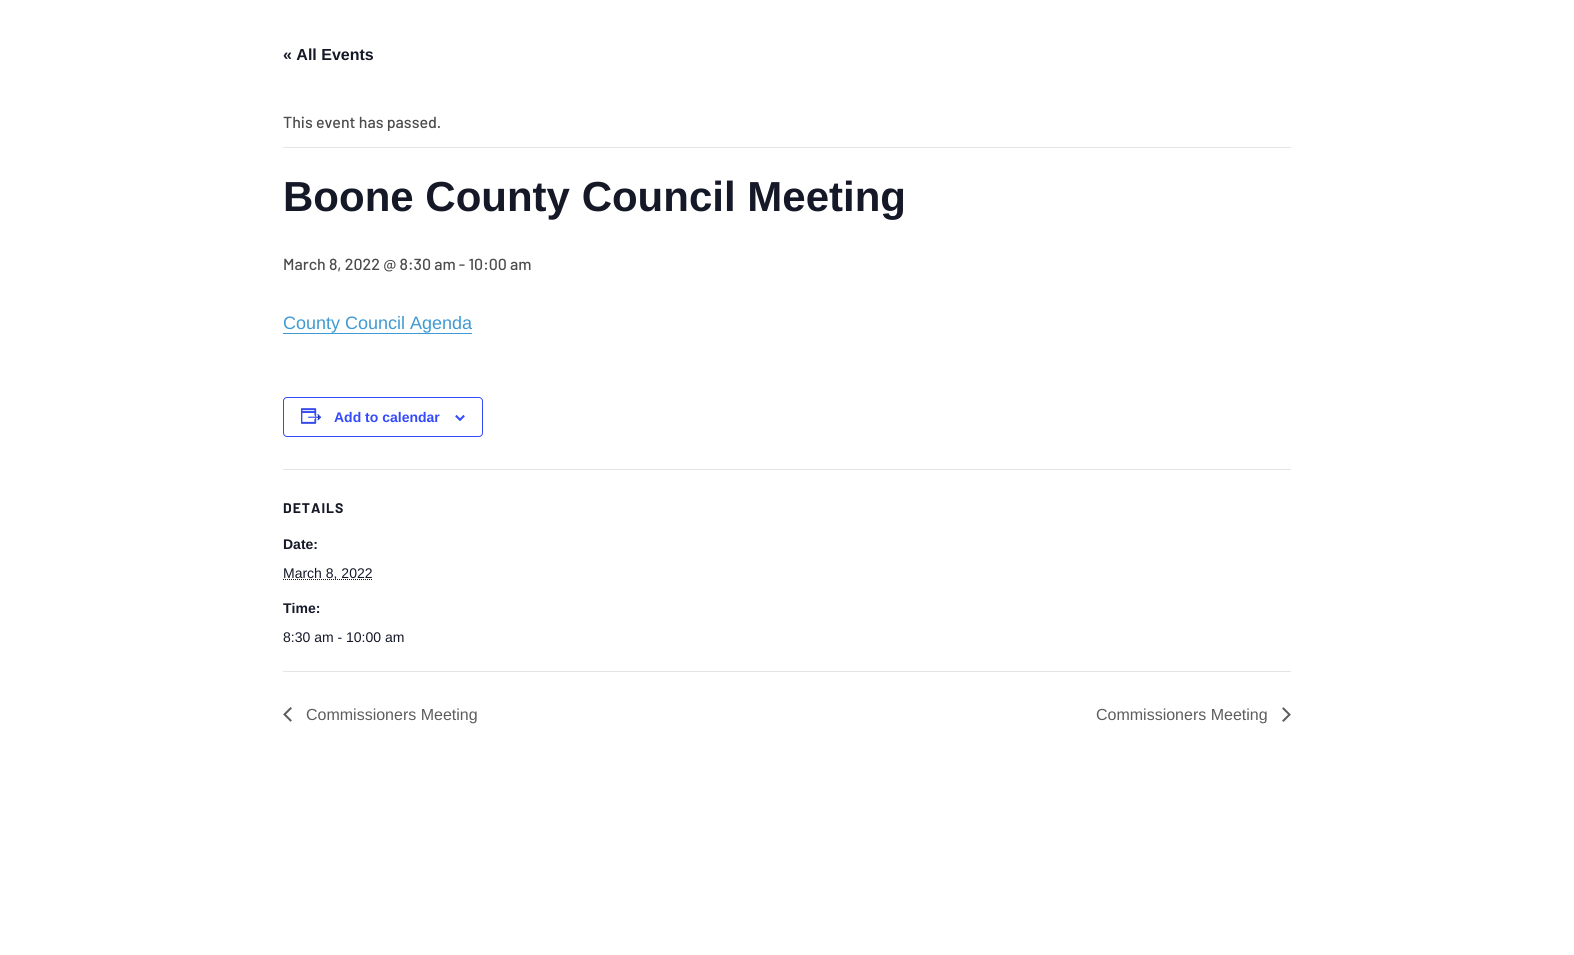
#include <cairo.h>
#include <math.h>
#include <stddef.h>


static void set_color(cairo_t *cr, unsigned color) {
    cairo_set_source_rgb(cr, (color >> 16) / 255.0, (color >> 8 & 255) / 255.0, (color & 255) / 255.0);
}

static void draw_text(cairo_t *cr, double x, double y, const char *s, const char *family, double size, int italic, int bold, unsigned color) {
    cairo_select_font_face(cr, family, italic ? CAIRO_FONT_SLANT_ITALIC : CAIRO_FONT_SLANT_NORMAL,
        bold ? CAIRO_FONT_WEIGHT_BOLD : CAIRO_FONT_WEIGHT_NORMAL);
    cairo_set_font_size(cr, size);
    set_color(cr, color);
    cairo_move_to(cr, x, y);
    cairo_show_text(cr, s);
}

static void draw_spaced(cairo_t *cr, double x, double y, const char *s, double letter, double word) {
    cairo_move_to(cr, x, y);
    while (*s) {
        char ch[5] = {0};
        int n = 0;
        do ch[n++] = *s++; while ((*s & 0xC0) == 0x80);
        cairo_show_text(cr, ch);
        cairo_rel_move_to(cr, letter + word * (*ch == ' '), 0);
    }
}

static void fill_rect(cairo_t *cr, double x, double y, double w, double h, unsigned color) {
    set_color(cr, color);
    cairo_rectangle(cr, x, y, w, h);
    cairo_fill(cr);
}

static void rounded_rect(cairo_t *cr, double x, double y, double w, double h, double r) {
    cairo_new_sub_path(cr);
    cairo_arc(cr, x + w - r, y + h - r, r, 0, M_PI / 2);
    cairo_arc(cr, x + r, y + h - r, r, M_PI / 2, M_PI);
    cairo_arc(cr, x + r, y + r, r, M_PI, 1.5 * M_PI);
    cairo_arc(cr, x + w - r, y + r, r, 1.5 * M_PI, 2 * M_PI);
    cairo_close_path(cr);
}

static void draw_image(cairo_t *cr, const char *path, double x, double y, double w, double h) {
    cairo_surface_t *image = cairo_image_surface_create_from_png(path);
    cairo_save(cr);
    cairo_set_source_surface(cr, image, x, y);
    cairo_rectangle(cr, x, y, w, h);
    cairo_fill(cr);
    cairo_restore(cr);
    cairo_surface_destroy(image);
}

int main(void) {
    cairo_surface_t *surface = cairo_image_surface_create(CAIRO_FORMAT_RGB24, 1574, 955);
    cairo_t *cr = cairo_create(surface);
    cairo_font_options_t *options = cairo_font_options_create();
    cairo_font_options_set_hint_metrics(options, CAIRO_HINT_METRICS_OFF);
    cairo_font_options_set_hint_style(options, CAIRO_HINT_STYLE_NONE);
    cairo_set_font_options(cr, options);
    cairo_set_miter_limit(cr, 4);
    set_color(cr, 0xFFFFFF);
    cairo_paint(cr);
    draw_text(cr, 283, 60, "« All Events", "Liberation Sans", 16, 0, 1, 0x141827);
    fill_rect(cr, 283, 147, 1008, 1, 0xE4E4E4);
    draw_text(cr, 283, 128, "This event has passed.", "Barlow Medium", 16, 0, 0, 0x4B4B4B);
    draw_text(cr, 283, 211, "Boone County Council Meeting", "Liberation Sans", 42, 0, 1, 0x141827);
    draw_text(cr, 283, 270, "March 8, 2022 @ 8:30 am - 10:00 am", "Barlow Medium", 16, 0, 0, 0x4B4B4B);
    draw_text(cr, 283, 329, "County Council Agenda", "Liberation Sans", 18, 0, 0, 0x3E9AD2);
    fill_rect(cr, 283, 333, 189, 1, 0x3E9AD2);
    rounded_rect(cr, 283.5, 397.5, 199, 39, 3.5);
    set_color(cr, 0x334AFF);
    cairo_set_line_width(cr, 1);
    cairo_stroke(cr);
    draw_image(cr, "assets/img1.png", 301, 408, 21, 16);
    draw_text(cr, 334, 422, "Add to calendar", "Liberation Sans", 14, 0, 1, 0x334AFF);
    draw_image(cr, "assets/img2.png", 455, 415, 10, 6);
    fill_rect(cr, 283, 469, 1008, 1, 0xE4E4E4);
    cairo_select_font_face(cr, "Barlow", CAIRO_FONT_SLANT_NORMAL, CAIRO_FONT_WEIGHT_BOLD);
    set_color(cr, 0x141827);
    draw_spaced(cr, 283, 513, "DETAILS", 1, 0);
    draw_text(cr, 283, 549, "Date:", "Liberation Sans", 14, 0, 1, 0x141827);
    cairo_new_path(cr);
    cairo_move_to(cr, 283, 579.5);
    cairo_line_to(cr, 372.5, 579.5);
    cairo_set_dash(cr, (double[]){1, 1}, 2, 0);
    cairo_stroke(cr);
    draw_text(cr, 283, 578, "March 8, 2022", "Liberation Sans", 14, 0, 0, 0x141827);
    draw_text(cr, 283, 613, "Time:", "Liberation Sans", 14, 0, 1, 0x141827);
    draw_text(cr, 283, 642, "8:30 am - 10:00 am", "Liberation Sans", 14, 0, 0, 0x141827);
    fill_rect(cr, 283, 671, 1008, 1, 0xE4E4E4);
    draw_image(cr, "assets/img3.png", 283, 707, 9, 15);
    draw_text(cr, 306, 720, "Commissioners Meeting", "Liberation Sans", 16, 0, 0, 0x5D5D5D);
    draw_text(cr, 1096, 720, "Commissioners Meeting", "Liberation Sans", 16, 0, 0, 0x5D5D5D);
    draw_image(cr, "assets/img4.png", 1282, 707, 9, 15);
    cairo_surface_write_to_png(surface, "output.png");
    cairo_font_options_destroy(options);
    cairo_destroy(cr);
    cairo_surface_destroy(surface);
    return 0;
}
